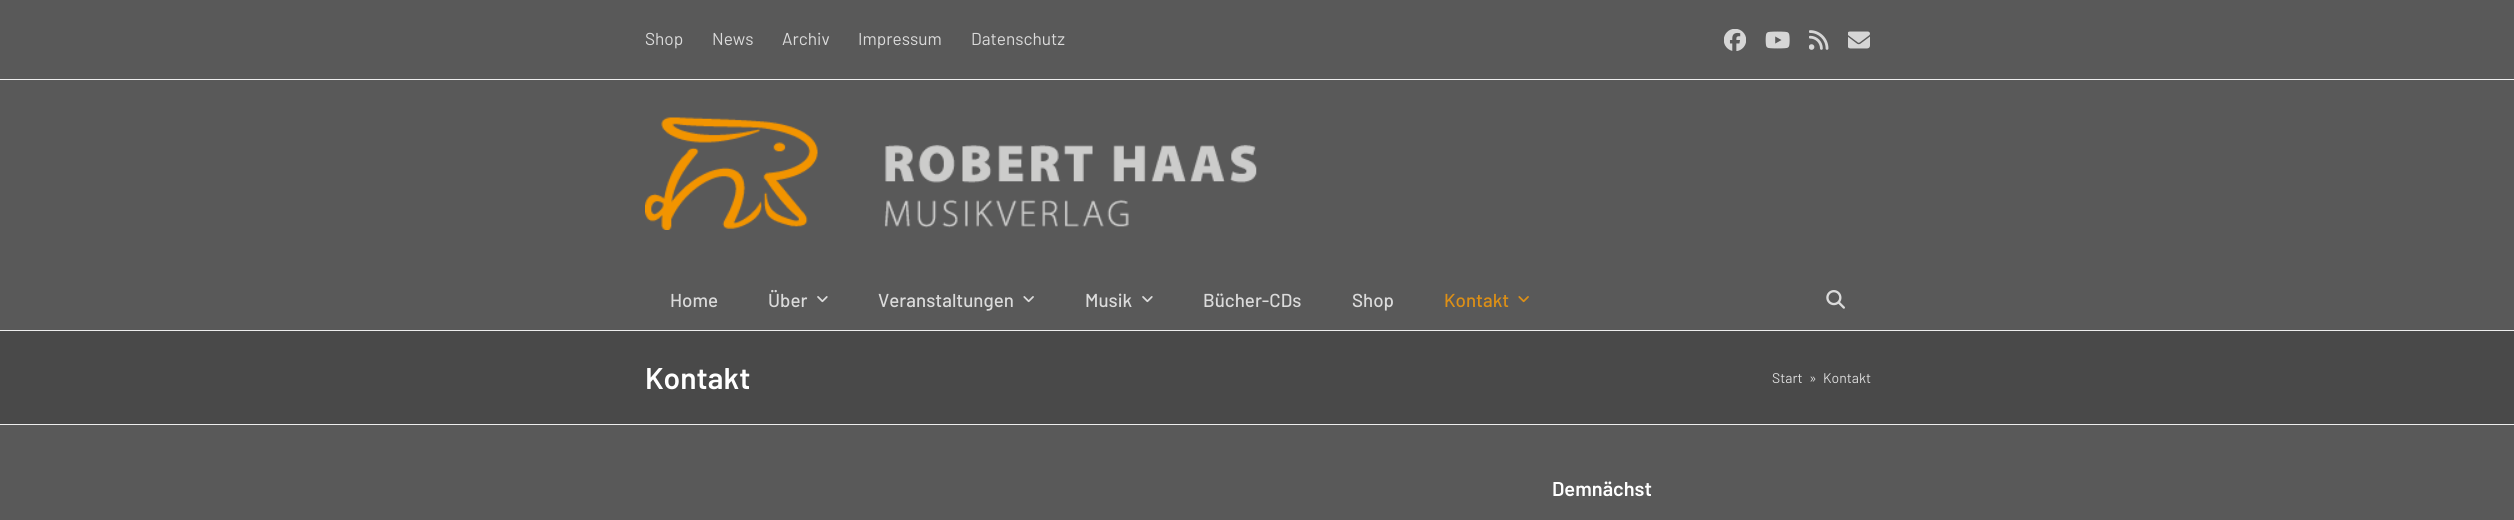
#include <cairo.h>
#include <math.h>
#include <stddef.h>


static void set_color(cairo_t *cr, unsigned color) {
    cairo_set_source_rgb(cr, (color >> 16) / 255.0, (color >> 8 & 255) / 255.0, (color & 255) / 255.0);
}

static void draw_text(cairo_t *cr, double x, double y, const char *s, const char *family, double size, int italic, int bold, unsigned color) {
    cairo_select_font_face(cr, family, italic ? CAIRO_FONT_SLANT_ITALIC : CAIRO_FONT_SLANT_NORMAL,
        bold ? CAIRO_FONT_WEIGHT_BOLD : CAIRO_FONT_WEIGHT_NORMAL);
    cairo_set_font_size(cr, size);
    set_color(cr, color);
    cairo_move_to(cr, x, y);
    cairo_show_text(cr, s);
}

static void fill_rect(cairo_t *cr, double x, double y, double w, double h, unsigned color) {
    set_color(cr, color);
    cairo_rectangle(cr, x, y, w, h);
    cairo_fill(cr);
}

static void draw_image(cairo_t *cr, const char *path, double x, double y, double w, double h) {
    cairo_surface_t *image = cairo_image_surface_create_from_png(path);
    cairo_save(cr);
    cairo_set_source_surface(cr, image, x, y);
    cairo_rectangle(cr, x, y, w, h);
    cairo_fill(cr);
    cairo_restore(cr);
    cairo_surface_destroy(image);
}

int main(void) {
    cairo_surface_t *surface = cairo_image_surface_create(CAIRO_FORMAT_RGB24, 2514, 520);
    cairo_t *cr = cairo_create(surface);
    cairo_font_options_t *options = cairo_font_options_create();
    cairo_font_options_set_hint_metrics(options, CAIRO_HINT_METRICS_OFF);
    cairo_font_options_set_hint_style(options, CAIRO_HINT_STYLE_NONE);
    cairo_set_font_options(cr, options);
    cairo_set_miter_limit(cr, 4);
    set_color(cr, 0x595959);
    cairo_paint(cr);
    fill_rect(cr, 0, 79, 2514, 1, 0xEEEEEE);
    draw_text(cr, 645, 45, "Shop", "Barlow", 17.25, 0, 0, 0xDBDBDB);
    draw_text(cr, 712, 45, "News", "Barlow", 17.25, 0, 0, 0xDBDBDB);
    draw_text(cr, 782, 45, "Archiv", "Barlow", 17.25, 0, 0, 0xDBDBDB);
    draw_text(cr, 858, 45, "Impressum", "Barlow", 17.25, 0, 0, 0xDBDBDB);
    draw_text(cr, 971, 45, "Datenschutz", "Barlow", 17.25, 0, 0, 0xDBDBDB);
    draw_image(cr, "assets/img1.png", 1724, 29, 22, 22);
    draw_image(cr, "assets/img2.png", 1765, 31, 25, 18);
    draw_image(cr, "assets/img3.png", 1809, 30, 20, 20);
    draw_image(cr, "assets/img4.png", 1848, 31, 22, 18);
    draw_image(cr, "assets/img5.png", 645, 117, 612, 113);
    draw_text(cr, 670, 307, "Home", "Barlow Medium", 18.75, 0, 0, 0xDBDBDB);
    draw_text(cr, 768, 307, "Über", "Barlow Medium", 18.75, 0, 0, 0xDBDBDB);
    draw_image(cr, "assets/img6.png", 817, 296, 11, 7);
    draw_text(cr, 878, 307, "Veranstaltungen", "Barlow Medium", 18.75, 0, 0, 0xDBDBDB);
    draw_image(cr, "assets/img7.png", 1023, 296, 11, 7);
    draw_text(cr, 1085, 307, "Musik", "Barlow Medium", 18.75, 0, 0, 0xDBDBDB);
    draw_image(cr, "assets/img6.png", 1142, 296, 11, 7);
    draw_text(cr, 1203, 307, "Bücher-CDs", "Barlow Medium", 18.75, 0, 0, 0xDBDBDB);
    draw_text(cr, 1352, 307, "Shop", "Barlow Medium", 18.75, 0, 0, 0xDBDBDB);
    draw_text(cr, 1444, 307, "Kontakt", "Barlow Medium", 18.75, 0, 0, 0xDC8F16);
    draw_image(cr, "assets/img8.png", 1518, 296, 11, 7);
    draw_image(cr, "assets/img9.png", 1826, 290, 19, 19);
    fill_rect(cr, 0, 331, 2514, 93, 0x494949);
    fill_rect(cr, 0, 330, 2514, 1, 0xEEEEEE);
    fill_rect(cr, 0, 424, 2514, 1, 0xEEEEEE);
    draw_text(cr, 645, 389, "Kontakt", "Barlow SemiBold", 30, 0, 0, 0xFFFFFF);
    draw_text(cr, 1772, 383, "Start", "Barlow", 14, 0, 0, 0xDBDBDB);
    draw_text(cr, 1809, 383, "»", "Barlow", 14, 0, 0, 0xDBDBDB);
    draw_text(cr, 1823, 383, "Kontakt", "Barlow", 14, 0, 0, 0xDBDBDB);
    draw_text(cr, 1552, 496, "Demnächst", "Barlow SemiBold", 20, 0, 0, 0xFFFFFF);
    cairo_surface_write_to_png(surface, "output.png");
    cairo_font_options_destroy(options);
    cairo_destroy(cr);
    cairo_surface_destroy(surface);
    return 0;
}
